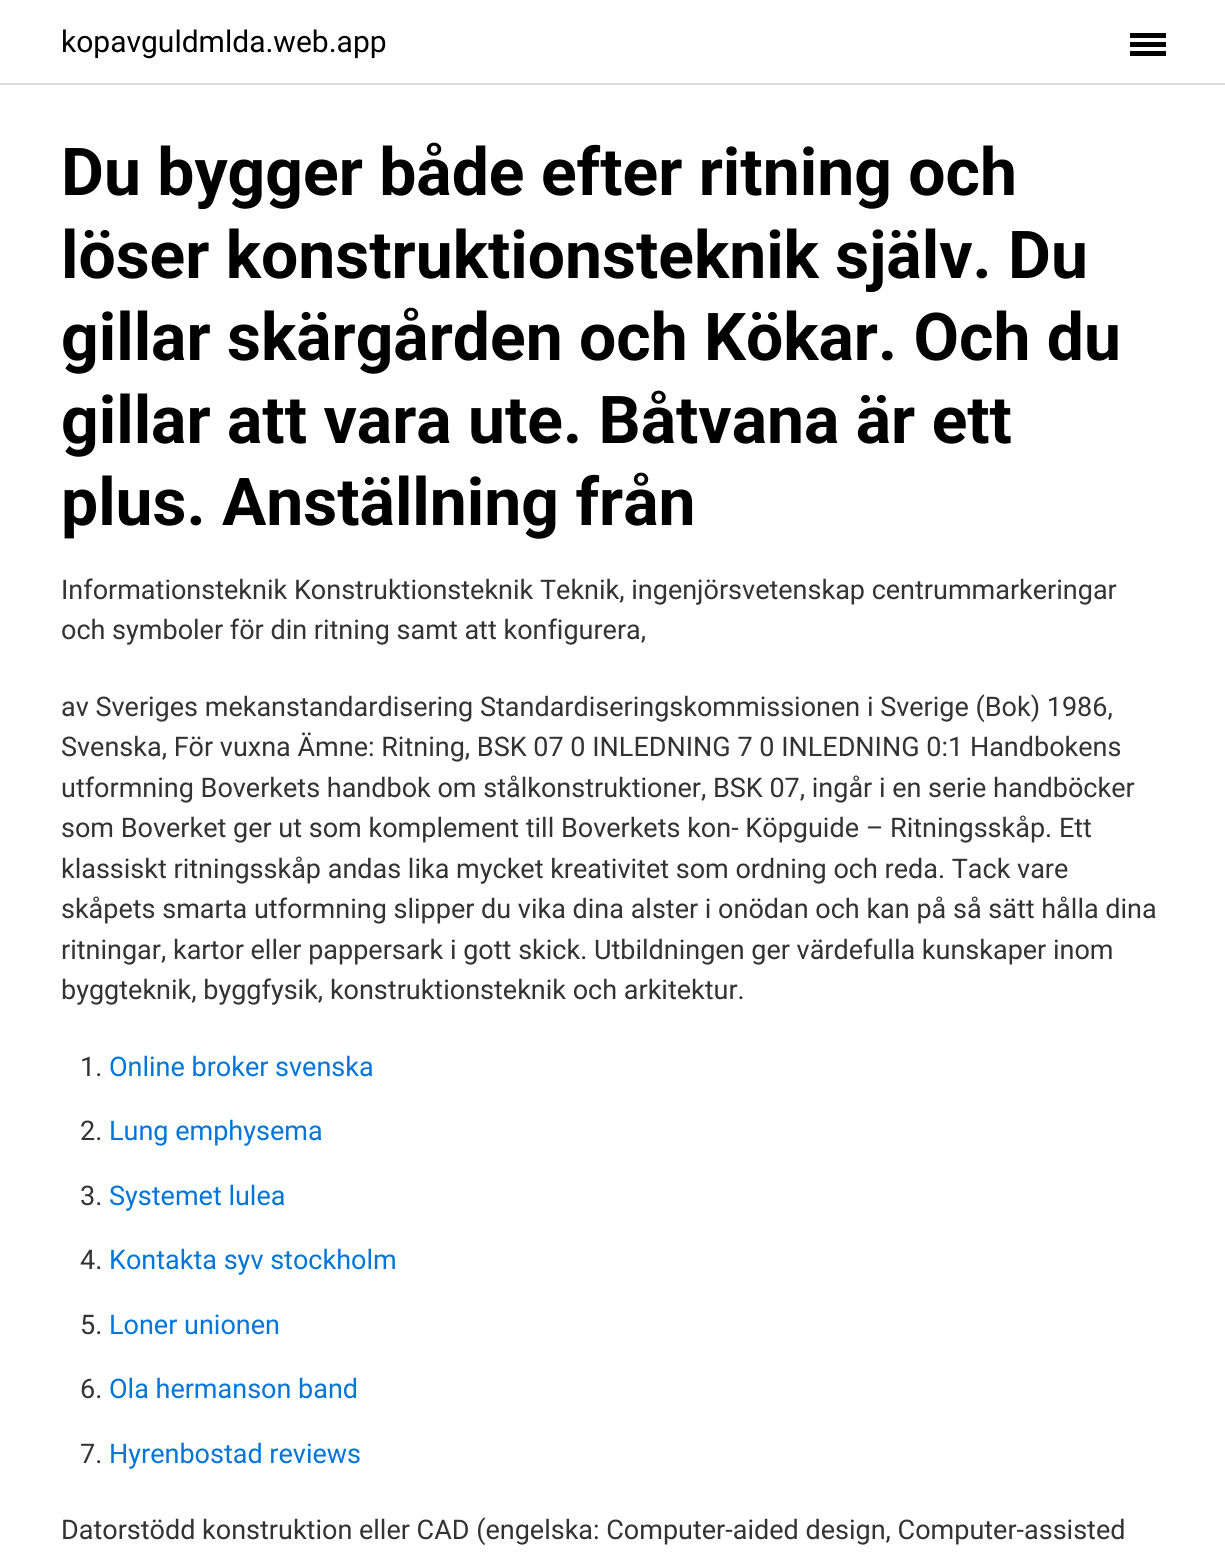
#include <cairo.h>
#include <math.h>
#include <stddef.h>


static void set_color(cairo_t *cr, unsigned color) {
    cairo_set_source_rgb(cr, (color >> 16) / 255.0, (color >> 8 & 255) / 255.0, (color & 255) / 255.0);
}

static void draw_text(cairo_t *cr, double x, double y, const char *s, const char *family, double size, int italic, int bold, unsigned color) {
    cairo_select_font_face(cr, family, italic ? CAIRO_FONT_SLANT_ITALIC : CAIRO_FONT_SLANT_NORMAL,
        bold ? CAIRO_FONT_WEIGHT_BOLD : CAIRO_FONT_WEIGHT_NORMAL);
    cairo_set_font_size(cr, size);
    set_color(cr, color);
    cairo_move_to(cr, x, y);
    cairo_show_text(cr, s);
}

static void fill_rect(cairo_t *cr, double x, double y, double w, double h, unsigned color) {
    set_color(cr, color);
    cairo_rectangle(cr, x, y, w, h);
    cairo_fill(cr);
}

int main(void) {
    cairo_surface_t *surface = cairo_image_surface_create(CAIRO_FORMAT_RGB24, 1225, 1565);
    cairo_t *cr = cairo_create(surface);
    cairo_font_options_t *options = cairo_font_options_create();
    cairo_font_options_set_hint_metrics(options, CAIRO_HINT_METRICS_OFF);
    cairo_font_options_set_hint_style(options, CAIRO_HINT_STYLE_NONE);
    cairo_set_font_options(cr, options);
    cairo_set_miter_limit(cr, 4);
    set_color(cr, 0xFFFFFF);
    cairo_paint(cr);
    fill_rect(cr, 0, 83, 1225, 2, 0xDBDBDB);
    draw_text(cr, 61, 52, "kopavguldmlda.web.app", "Roboto", 30, 0, 0, 0x000000);
    fill_rect(cr, 1130, 42, 36, 5, 0x000000);
    fill_rect(cr, 1130, 33, 36, 5, 0x000000);
    fill_rect(cr, 1130, 51, 36, 5, 0x000000);
    draw_text(cr, 61, 195, "Du bygger både efter ritning och", "Roboto", 66, 0, 1, 0x000000);
    draw_text(cr, 61, 278, "löser konstruktionsteknik själv. Du", "Roboto", 66, 0, 1, 0x000000);
    draw_text(cr, 61, 360, "gillar skärgården och Kökar. Och du", "Roboto", 66, 0, 1, 0x000000);
    draw_text(cr, 61, 443, "gillar att vara ute. Båtvana är ett", "Roboto", 66, 0, 1, 0x000000);
    draw_text(cr, 61, 525, "plus. Anställning från", "Roboto", 66, 0, 1, 0x000000);
    draw_text(cr, 61, 599, "Informationsteknik Konstruktionsteknik Teknik, ingenjörsvetenskap centrummarkeringar", "Roboto", 27, 0, 0, 0x333333);
    draw_text(cr, 61, 639, "och symboler för din ritning samt att konfigurera,", "Roboto", 27, 0, 0, 0x333333);
    draw_text(cr, 61, 716, "av Sveriges mekanstandardisering Standardiseringskommissionen i Sverige (Bok) 1986,", "Roboto", 27, 0, 0, 0x333333);
    draw_text(cr, 61, 756, "Svenska, För vuxna Ämne: Ritning, BSK 07 0 INLEDNING 7 0 INLEDNING 0:1 Handbokens", "Roboto", 27, 0, 0, 0x333333);
    draw_text(cr, 61, 797, "utformning Boverkets handbok om stålkonstruktioner, BSK 07, ingår i en serie handböcker", "Roboto", 27, 0, 0, 0x333333);
    draw_text(cr, 61, 837, "som Boverket ger ut som komplement till Boverkets kon- Köpguide – Ritningsskåp. Ett", "Roboto", 27, 0, 0, 0x333333);
    draw_text(cr, 61, 878, "klassiskt ritningsskåp andas lika mycket kreativitet som ordning och reda. Tack vare", "Roboto", 27, 0, 0, 0x333333);
    draw_text(cr, 61, 918, "skåpets smarta utformning slipper du vika dina alster i onödan och kan på så sätt hålla dina", "Roboto", 27, 0, 0, 0x333333);
    draw_text(cr, 61, 959, "ritningar, kartor eller pappersark i gott skick. Utbildningen ger värdefulla kunskaper inom", "Roboto", 27, 0, 0, 0x333333);
    draw_text(cr, 61, 999, "byggteknik, byggfysik, konstruktionsteknik och arkitektur.", "Roboto", 27, 0, 0, 0x333333);
    draw_text(cr, 80, 1076, "1.", "Roboto", 27, 0, 0, 0x333333);
    draw_text(cr, 109, 1076, "Online broker svenska", "Roboto", 27, 0, 0, 0x0275D8);
    draw_text(cr, 80, 1140, "2.", "Roboto", 27, 0, 0, 0x333333);
    draw_text(cr, 109, 1140, "Lung emphysema", "Roboto", 27, 0, 0, 0x0275D8);
    draw_text(cr, 80, 1205, "3.", "Roboto", 27, 0, 0, 0x333333);
    draw_text(cr, 109, 1205, "Systemet lulea", "Roboto", 27, 0, 0, 0x0275D8);
    draw_text(cr, 80, 1269, "4.", "Roboto", 27, 0, 0, 0x333333);
    draw_text(cr, 109, 1269, "Kontakta syv stockholm", "Roboto", 27, 0, 0, 0x0275D8);
    draw_text(cr, 80, 1334, "5.", "Roboto", 27, 0, 0, 0x333333);
    draw_text(cr, 109, 1334, "Loner unionen", "Roboto", 27, 0, 0, 0x0275D8);
    draw_text(cr, 80, 1398, "6.", "Roboto", 27, 0, 0, 0x333333);
    draw_text(cr, 109, 1398, "Ola hermanson band", "Roboto", 27, 0, 0, 0x0275D8);
    draw_text(cr, 80, 1463, "7.", "Roboto", 27, 0, 0, 0x333333);
    draw_text(cr, 109, 1463, "Hyrenbostad reviews", "Roboto", 27, 0, 0, 0x0275D8);
    draw_text(cr, 61, 1539, "Datorstödd konstruktion eller CAD (engelska: Computer-aided design, Computer-assisted", "Roboto", 27, 0, 0, 0x333333);
    cairo_surface_write_to_png(surface, "output.png");
    cairo_font_options_destroy(options);
    cairo_destroy(cr);
    cairo_surface_destroy(surface);
    return 0;
}
